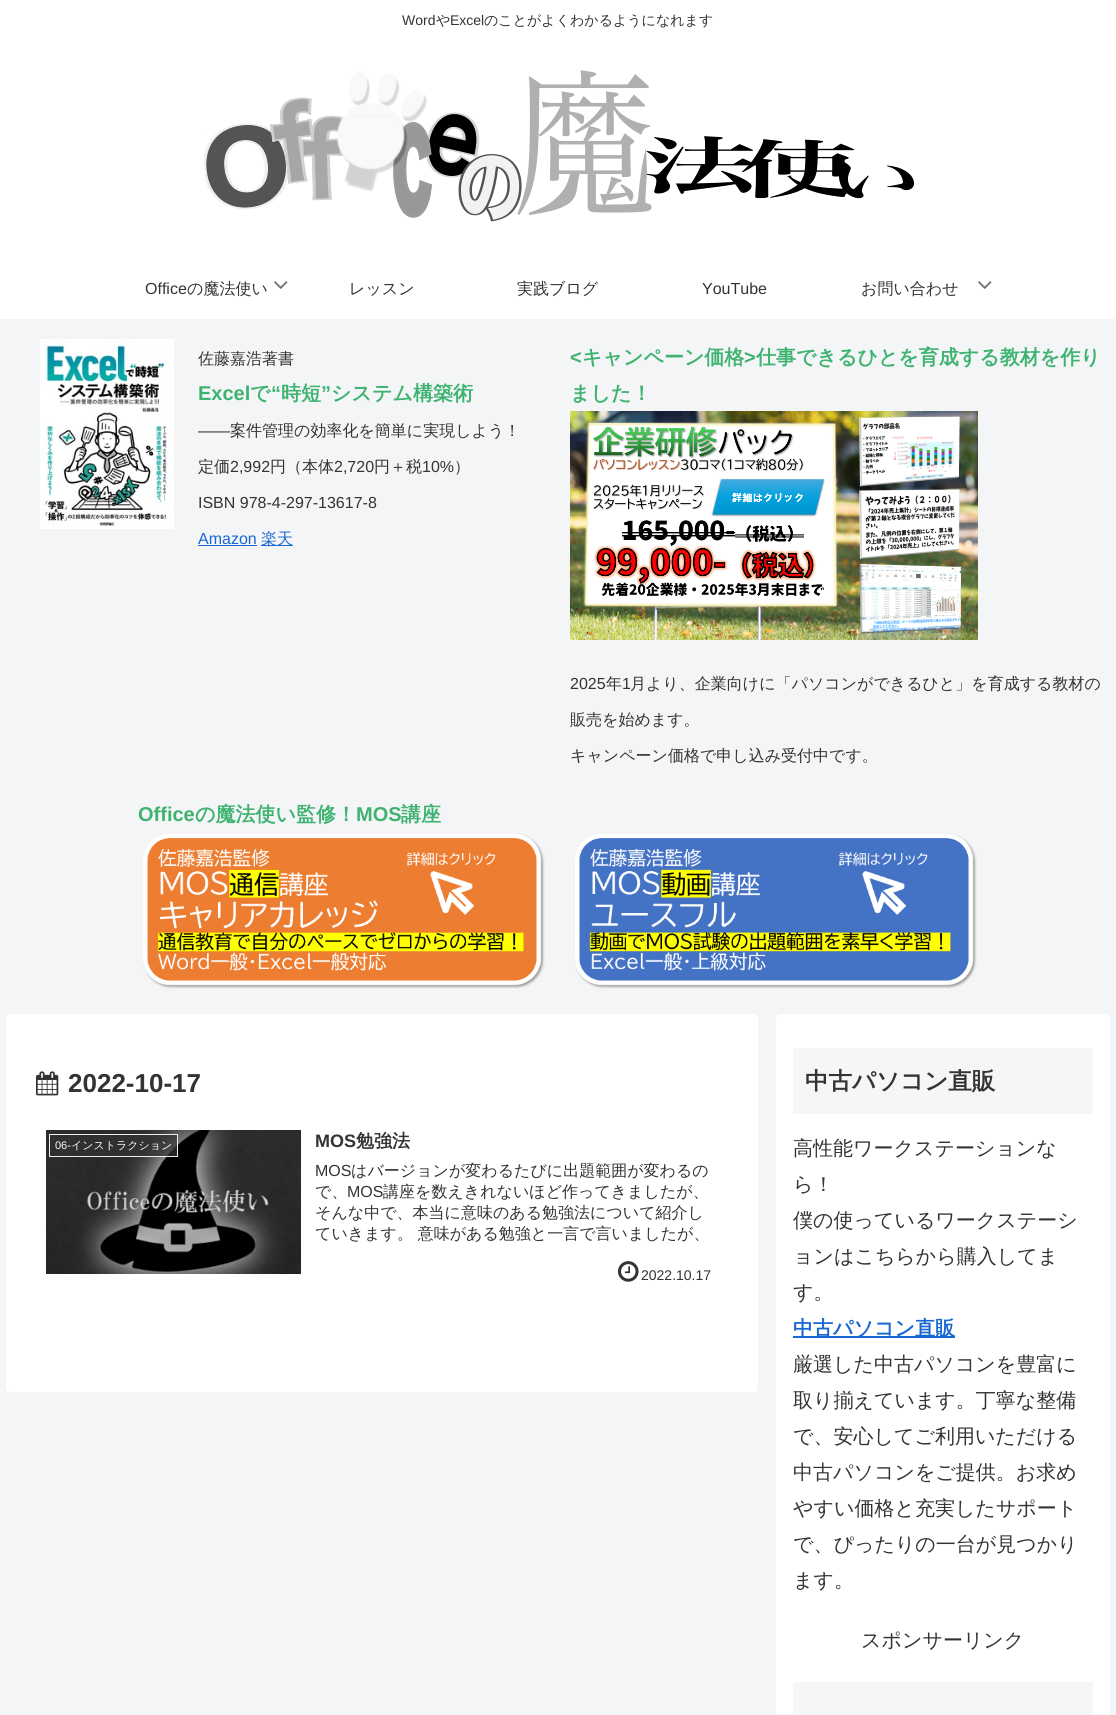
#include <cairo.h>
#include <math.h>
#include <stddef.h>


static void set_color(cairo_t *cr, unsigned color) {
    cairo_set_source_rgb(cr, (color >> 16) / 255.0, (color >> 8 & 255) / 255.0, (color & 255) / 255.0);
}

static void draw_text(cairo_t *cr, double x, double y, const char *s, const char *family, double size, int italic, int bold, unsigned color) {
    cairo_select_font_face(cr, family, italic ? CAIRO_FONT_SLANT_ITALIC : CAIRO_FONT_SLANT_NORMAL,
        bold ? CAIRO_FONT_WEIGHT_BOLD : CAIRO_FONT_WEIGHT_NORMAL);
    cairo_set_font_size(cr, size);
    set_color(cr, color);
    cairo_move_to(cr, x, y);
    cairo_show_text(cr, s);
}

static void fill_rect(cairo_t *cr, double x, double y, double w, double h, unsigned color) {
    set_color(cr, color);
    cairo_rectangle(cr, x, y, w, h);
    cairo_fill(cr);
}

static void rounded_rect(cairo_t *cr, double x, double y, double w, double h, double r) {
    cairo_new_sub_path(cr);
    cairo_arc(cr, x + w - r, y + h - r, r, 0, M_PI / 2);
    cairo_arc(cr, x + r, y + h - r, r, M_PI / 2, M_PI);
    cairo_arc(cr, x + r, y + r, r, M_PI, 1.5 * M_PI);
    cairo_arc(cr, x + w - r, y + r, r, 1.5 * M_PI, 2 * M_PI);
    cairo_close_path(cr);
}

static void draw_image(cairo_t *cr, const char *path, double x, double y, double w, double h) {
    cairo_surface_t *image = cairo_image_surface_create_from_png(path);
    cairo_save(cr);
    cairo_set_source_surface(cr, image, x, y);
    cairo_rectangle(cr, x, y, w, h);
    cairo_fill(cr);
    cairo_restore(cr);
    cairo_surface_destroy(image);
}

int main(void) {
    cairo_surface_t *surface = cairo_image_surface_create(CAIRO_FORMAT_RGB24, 1116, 1715);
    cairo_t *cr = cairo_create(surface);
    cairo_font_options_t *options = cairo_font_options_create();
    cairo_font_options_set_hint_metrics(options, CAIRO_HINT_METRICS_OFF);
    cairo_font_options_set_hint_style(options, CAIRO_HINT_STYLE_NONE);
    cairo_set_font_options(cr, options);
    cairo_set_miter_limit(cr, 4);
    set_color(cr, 0xF4F5F7);
    cairo_paint(cr);
    fill_rect(cr, 0, 0, 1116, 319, 0xFFFFFF);
    draw_text(cr, 402, 25, "Word", "Liberation Sans", 14, 0, 0, 0x333333);
    draw_text(cr, 436, 25, "や", "WenQuanYi Zen Hei Medium", 14, 0, 0, 0x333333);
    draw_text(cr, 450, 25, "Excel", "Liberation Sans", 14, 0, 0, 0x333333);
    draw_text(cr, 484, 25, "のことがよくわかるようになれます", "WenQuanYi Zen Hei Medium", 14, 0, 0, 0x333333);
    draw_image(cr, "assets/img1.png", 203, 70, 711, 152);
    draw_text(cr, 145, 294, "Office", "Liberation Sans", 16, 0, 0, 0x333333);
    draw_text(cr, 187, 294, "の魔法使い", "WenQuanYi Zen Hei Medium", 16, 0, 0, 0x333333);
    draw_image(cr, "assets/img2.png", 274, 281, 14, 8);
    draw_text(cr, 349, 294, "レッスン", "WenQuanYi Zen Hei Medium", 16, 0, 0, 0x333333);
    draw_text(cr, 517, 294, "実践ブログ", "WenQuanYi Zen Hei Medium", 16, 0, 0, 0x333333);
    draw_text(cr, 702, 294, "YouTube", "Liberation Sans", 16, 0, 0, 0x333333);
    draw_text(cr, 861, 294, "お問い合わせ", "WenQuanYi Zen Hei Medium", 16, 0, 0, 0x333333);
    draw_image(cr, "assets/img2.png", 978, 281, 14, 8);
    draw_image(cr, "assets/img3.png", 40, 339, 134, 190);
    draw_text(cr, 198, 364, "佐藤嘉浩著書", "WenQuanYi Zen Hei Medium", 16, 0, 0, 0x333333);
    draw_text(cr, 198, 400, "Excel", "Liberation Sans", 20, 0, 1, 0x3EB370);
    draw_text(cr, 250, 400, "で", "WenQuanYi Zen Hei", 20, 0, 1, 0x3EB370);
    draw_text(cr, 271, 400, "“", "Liberation Sans", 20, 0, 1, 0x3EB370);
    draw_text(cr, 281, 400, "時短", "WenQuanYi Zen Hei", 20, 0, 1, 0x3EB370);
    draw_text(cr, 321, 400, "”", "Liberation Sans", 20, 0, 1, 0x3EB370);
    draw_text(cr, 331, 400, "システム構築術", "WenQuanYi Zen Hei", 20, 0, 1, 0x3EB370);
    draw_text(cr, 198, 436, "――", "Liberation Sans", 16, 0, 0, 0x333333);
    draw_text(cr, 230, 436, "案件管理の効率化を簡単に実現しよう！", "WenQuanYi Zen Hei Medium", 16, 0, 0, 0x333333);
    draw_text(cr, 198, 472, "定価", "WenQuanYi Zen Hei Medium", 16, 0, 0, 0x333333);
    draw_text(cr, 230, 472, "2,992", "Liberation Sans", 16, 0, 0, 0x333333);
    draw_text(cr, 270, 472, "円（本体", "WenQuanYi Zen Hei Medium", 16, 0, 0, 0x333333);
    draw_text(cr, 334, 472, "2,720", "Liberation Sans", 16, 0, 0, 0x333333);
    draw_text(cr, 374, 472, "円＋税", "WenQuanYi Zen Hei Medium", 16, 0, 0, 0x333333);
    draw_text(cr, 422, 472, "10%", "Liberation Sans", 16, 0, 0, 0x333333);
    draw_text(cr, 454, 472, "）", "WenQuanYi Zen Hei Medium", 16, 0, 0, 0x333333);
    draw_text(cr, 198, 508, "ISBN 978-4-297-13617-8", "Liberation Sans", 16, 0, 0, 0x333333);
    draw_text(cr, 198, 544, "Amazon", "Liberation Sans", 16, 0, 0, 0x1967D2);
    fill_rect(cr, 198, 545, 59, 1, 0x1967D2);
    fill_rect(cr, 261, 545, 32, 1, 0x1967D2);
    draw_text(cr, 261, 544, "楽天", "WenQuanYi Zen Hei Medium", 16, 0, 0, 0x1967D2);
    draw_text(cr, 570, 364, "<", "Liberation Sans", 20, 0, 1, 0x3EB370);
    draw_text(cr, 582, 364, "キャンペーン価格", "WenQuanYi Zen Hei", 20, 0, 1, 0x3EB370);
    draw_text(cr, 744, 364, ">", "Liberation Sans", 20, 0, 1, 0x3EB370);
    draw_text(cr, 756, 364, "仕事できるひとを育成する教材を作り", "WenQuanYi Zen Hei", 20, 0, 1, 0x3EB370);
    draw_text(cr, 570, 400, "ました！", "WenQuanYi Zen Hei", 20, 0, 1, 0x3EB370);
    draw_image(cr, "assets/img4.png", 570, 411, 408, 229);
    draw_text(cr, 570, 689, "2025", "Liberation Sans", 16, 0, 0, 0x333333);
    draw_text(cr, 606, 689, "年", "WenQuanYi Zen Hei Medium", 16, 0, 0, 0x333333);
    draw_text(cr, 622, 689, "1", "Liberation Sans", 16, 0, 0, 0x333333);
    draw_text(cr, 630, 689, "月より、企業向けに「パソコンができるひと」を育成する教材の", "WenQuanYi Zen Hei Medium", 16, 0, 0, 0x333333);
    draw_text(cr, 570, 725, "販売を始めます。", "WenQuanYi Zen Hei Medium", 16, 0, 0, 0x333333);
    draw_text(cr, 570, 761, "キャンペーン価格で申し込み受付中です。", "WenQuanYi Zen Hei Medium", 16, 0, 0, 0x333333);
    draw_text(cr, 138, 821, "Office", "Liberation Sans", 20, 0, 1, 0x3EB370);
    draw_text(cr, 195, 821, "の魔法使い監修！", "WenQuanYi Zen Hei", 20, 0, 1, 0x3EB370);
    draw_text(cr, 356, 821, "MOS", "Liberation Sans", 20, 0, 1, 0x3EB370);
    draw_text(cr, 401, 821, "講座", "WenQuanYi Zen Hei", 20, 0, 1, 0x3EB370);
    draw_image(cr, "assets/img5.png", 143, 833, 402, 156);
    draw_image(cr, "assets/img6.png", 574, 833, 403, 156);
    set_color(cr, 0xFFFFFF);
    rounded_rect(cr, 6, 1014, 752, 378, 4);
    cairo_fill(cr);
    draw_image(cr, "assets/img7.png", 36, 1071, 23, 25);
    draw_text(cr, 68, 1092, "2022-10-17", "Liberation Sans", 26, 0, 1, 0x333333);
    draw_image(cr, "assets/img8.png", 46, 1130, 255, 144);
    cairo_set_source_rgba(cr, 0.2, 0.2, 0.2, 0.7);
    cairo_rectangle(cr, 49.5, 1134.5, 128, 22);
    cairo_fill_preserve(cr);
    set_color(cr, 0xEEEEEE);
    cairo_set_line_width(cr, 1);
    cairo_stroke(cr);
    draw_text(cr, 55, 1149, "06-", "Liberation Sans", 11, 0, 0, 0xFFFFFF);
    draw_text(cr, 71, 1149, "インストラクション", "WenQuanYi Zen Hei Medium", 11, 0, 0, 0xFFFFFF);
    draw_text(cr, 315, 1147, "MOS", "Liberation Sans", 18, 0, 1, 0x333333);
    draw_text(cr, 356, 1147, "勉強法", "WenQuanYi Zen Hei", 18, 0, 1, 0x333333);
    draw_text(cr, 315, 1176, "MOS", "Liberation Sans", 16, 0, 0, 0x333333);
    draw_text(cr, 351, 1176, "はバージョンが変わるたびに出題範囲が変わるの", "WenQuanYi Zen Hei Medium", 16, 0, 0, 0x333333);
    draw_text(cr, 315, 1197, "で、", "WenQuanYi Zen Hei Medium", 16, 0, 0, 0x333333);
    draw_text(cr, 347, 1197, "MOS", "Liberation Sans", 16, 0, 0, 0x333333);
    draw_text(cr, 383, 1197, "講座を数えきれないほど作ってきましたが、", "WenQuanYi Zen Hei Medium", 16, 0, 0, 0x333333);
    draw_text(cr, 315, 1218, "そんな中で、本当に意味のある勉強法について紹介し", "WenQuanYi Zen Hei Medium", 16, 0, 0, 0x333333);
    draw_text(cr, 315, 1239, "ていきます。 意味がある勉強と一言で言いましたが、", "WenQuanYi Zen Hei Medium", 16, 0, 0, 0x333333);
    draw_image(cr, "assets/img9.png", 618, 1261, 21, 21);
    draw_text(cr, 641, 1280, "2022.10.17", "Liberation Sans", 14, 0, 0, 0x333333);
    set_color(cr, 0xFFFFFF);
    rounded_rect(cr, 776, 1014, 334, 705, 4);
    cairo_fill(cr);
    set_color(cr, 0xF5F6F7);
    rounded_rect(cr, 793, 1048, 300, 66, 2);
    cairo_fill(cr);
    draw_text(cr, 805, 1089, "中古パソコン直販", "WenQuanYi Zen Hei", 23.5, 0, 1, 0x333333);
    draw_text(cr, 793, 1155, "高性能ワークステーションな", "WenQuanYi Zen Hei Medium", 20, 0, 0, 0x333333);
    draw_text(cr, 793, 1191, "ら！", "WenQuanYi Zen Hei Medium", 20, 0, 0, 0x333333);
    draw_text(cr, 793, 1227, "僕の使っているワークステーシ", "WenQuanYi Zen Hei Medium", 20, 0, 0, 0x333333);
    draw_text(cr, 793, 1263, "ョンはこちらから購入してま", "WenQuanYi Zen Hei Medium", 20, 0, 0, 0x333333);
    draw_text(cr, 793, 1299, "す。", "WenQuanYi Zen Hei Medium", 20, 0, 0, 0x333333);
    fill_rect(cr, 793, 1336, 162, 2, 0x1967D2);
    draw_text(cr, 793, 1335, "中古パソコン直販", "WenQuanYi Zen Hei", 20, 0, 1, 0x1967D2);
    draw_text(cr, 793, 1371, "厳選した中古パソコンを豊富に", "WenQuanYi Zen Hei Medium", 20, 0, 0, 0x333333);
    draw_text(cr, 793, 1407, "取り揃えています。丁寧な整備", "WenQuanYi Zen Hei Medium", 20, 0, 0, 0x333333);
    draw_text(cr, 793, 1443, "で、安心してご利用いただける", "WenQuanYi Zen Hei Medium", 20, 0, 0, 0x333333);
    draw_text(cr, 793, 1479, "中古パソコンをご提供。お求め", "WenQuanYi Zen Hei Medium", 20, 0, 0, 0x333333);
    draw_text(cr, 793, 1515, "やすい価格と充実したサポート", "WenQuanYi Zen Hei Medium", 20, 0, 0, 0x333333);
    draw_text(cr, 793, 1551, "で、ぴったりの一台が見つかり", "WenQuanYi Zen Hei Medium", 20, 0, 0, 0x333333);
    draw_text(cr, 793, 1587, "ます。", "WenQuanYi Zen Hei Medium", 20, 0, 0, 0x333333);
    draw_text(cr, 861, 1647, "スポンサーリンク", "WenQuanYi Zen Hei Medium", 20, 0, 0, 0x333333);
    set_color(cr, 0xF5F6F7);
    rounded_rect(cr, 793, 1682, 300, 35, 2);
    cairo_fill(cr);
    cairo_surface_write_to_png(surface, "output.png");
    cairo_font_options_destroy(options);
    cairo_destroy(cr);
    cairo_surface_destroy(surface);
    return 0;
}
